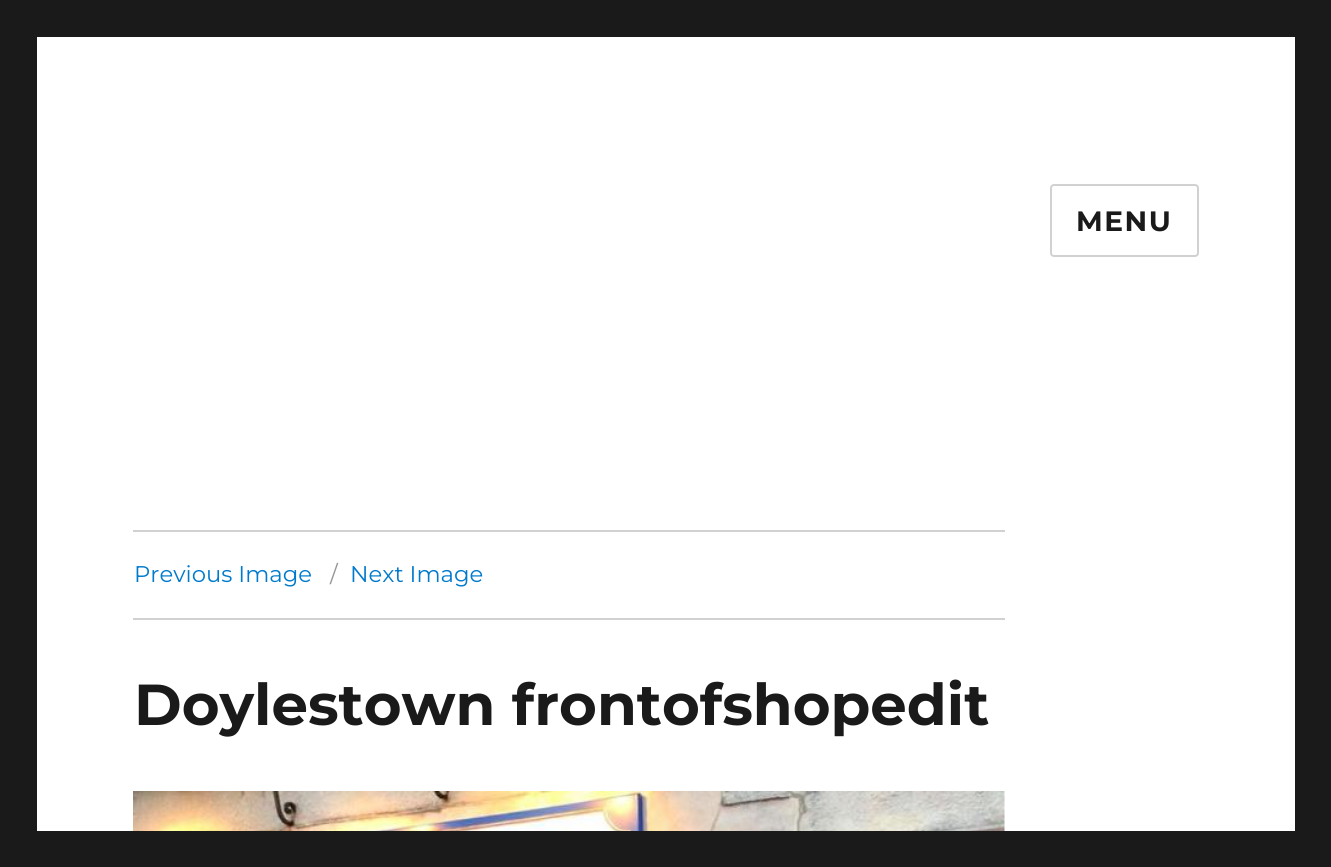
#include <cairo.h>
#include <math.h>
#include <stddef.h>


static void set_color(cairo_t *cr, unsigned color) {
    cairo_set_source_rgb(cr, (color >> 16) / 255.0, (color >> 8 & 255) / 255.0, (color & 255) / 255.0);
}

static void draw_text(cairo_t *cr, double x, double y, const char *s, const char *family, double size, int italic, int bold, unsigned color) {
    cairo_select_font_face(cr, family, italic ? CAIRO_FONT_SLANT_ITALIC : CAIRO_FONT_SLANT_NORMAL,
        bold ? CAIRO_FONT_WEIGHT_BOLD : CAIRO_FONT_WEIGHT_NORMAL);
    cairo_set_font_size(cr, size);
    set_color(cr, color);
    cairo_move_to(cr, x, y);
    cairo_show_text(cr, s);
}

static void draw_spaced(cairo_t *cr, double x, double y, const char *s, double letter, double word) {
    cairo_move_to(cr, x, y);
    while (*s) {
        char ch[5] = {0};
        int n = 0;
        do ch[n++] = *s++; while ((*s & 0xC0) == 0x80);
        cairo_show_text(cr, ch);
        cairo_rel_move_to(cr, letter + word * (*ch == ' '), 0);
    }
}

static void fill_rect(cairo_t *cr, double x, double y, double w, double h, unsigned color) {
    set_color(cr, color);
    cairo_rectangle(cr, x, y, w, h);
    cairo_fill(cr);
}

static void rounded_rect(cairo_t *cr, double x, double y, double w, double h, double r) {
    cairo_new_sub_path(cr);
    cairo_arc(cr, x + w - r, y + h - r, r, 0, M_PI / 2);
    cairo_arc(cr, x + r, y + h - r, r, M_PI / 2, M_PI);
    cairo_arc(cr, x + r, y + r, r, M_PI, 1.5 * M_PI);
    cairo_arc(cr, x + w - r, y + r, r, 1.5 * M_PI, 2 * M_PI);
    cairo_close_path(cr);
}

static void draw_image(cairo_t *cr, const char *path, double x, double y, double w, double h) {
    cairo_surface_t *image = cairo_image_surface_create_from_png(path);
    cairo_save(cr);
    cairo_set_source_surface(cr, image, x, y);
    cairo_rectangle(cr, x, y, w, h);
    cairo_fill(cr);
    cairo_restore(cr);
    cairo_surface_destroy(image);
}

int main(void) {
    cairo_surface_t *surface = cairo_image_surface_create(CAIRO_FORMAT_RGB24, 1331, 867);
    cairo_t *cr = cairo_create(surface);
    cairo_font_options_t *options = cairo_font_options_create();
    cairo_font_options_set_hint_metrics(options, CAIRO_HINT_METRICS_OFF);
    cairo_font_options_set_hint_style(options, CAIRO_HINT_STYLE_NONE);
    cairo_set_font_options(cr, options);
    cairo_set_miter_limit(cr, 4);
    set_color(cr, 0x1A1A1A);
    cairo_paint(cr);
    fill_rect(cr, 37, 37, 1258, 794, 0xFFFFFF);
    rounded_rect(cr, 1051, 185, 147, 71, 3);
    set_color(cr, 0xD1D1D1);
    cairo_stroke(cr);
    cairo_select_font_face(cr, "Montserrat Thin", CAIRO_FONT_SLANT_NORMAL, CAIRO_FONT_WEIGHT_NORMAL);
    cairo_set_font_size(cr, 28);
    set_color(cr, 0x1A1A1A);
    draw_spaced(cr, 1076, 231, "MENU", 1.5, 0);
    fill_rect(cr, 133, 530, 872, 2, 0xD1D1D1);
    fill_rect(cr, 133, 618, 872, 2, 0xD1D1D1);
    draw_text(cr, 134, 582, "Previous Image", "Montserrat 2 Thin", 22.75, 0, 0, 0x007ACC);
    draw_text(cr, 330, 582, "/", "Montserrat 2 Thin", 22.75, 0, 0, 0x959595);
    draw_text(cr, 350, 582, "Next Image", "Montserrat 2 Thin", 22.75, 0, 0, 0x007ACC);
    draw_text(cr, 134, 725, "Doylestown frontofshopedit", "Montserrat Thin", 57.75, 0, 0, 0x1A1A1A);
    draw_image(cr, "assets/img1.png", 133, 791, 872, 40);
    cairo_surface_write_to_png(surface, "output.png");
    cairo_font_options_destroy(options);
    cairo_destroy(cr);
    cairo_surface_destroy(surface);
    return 0;
}
